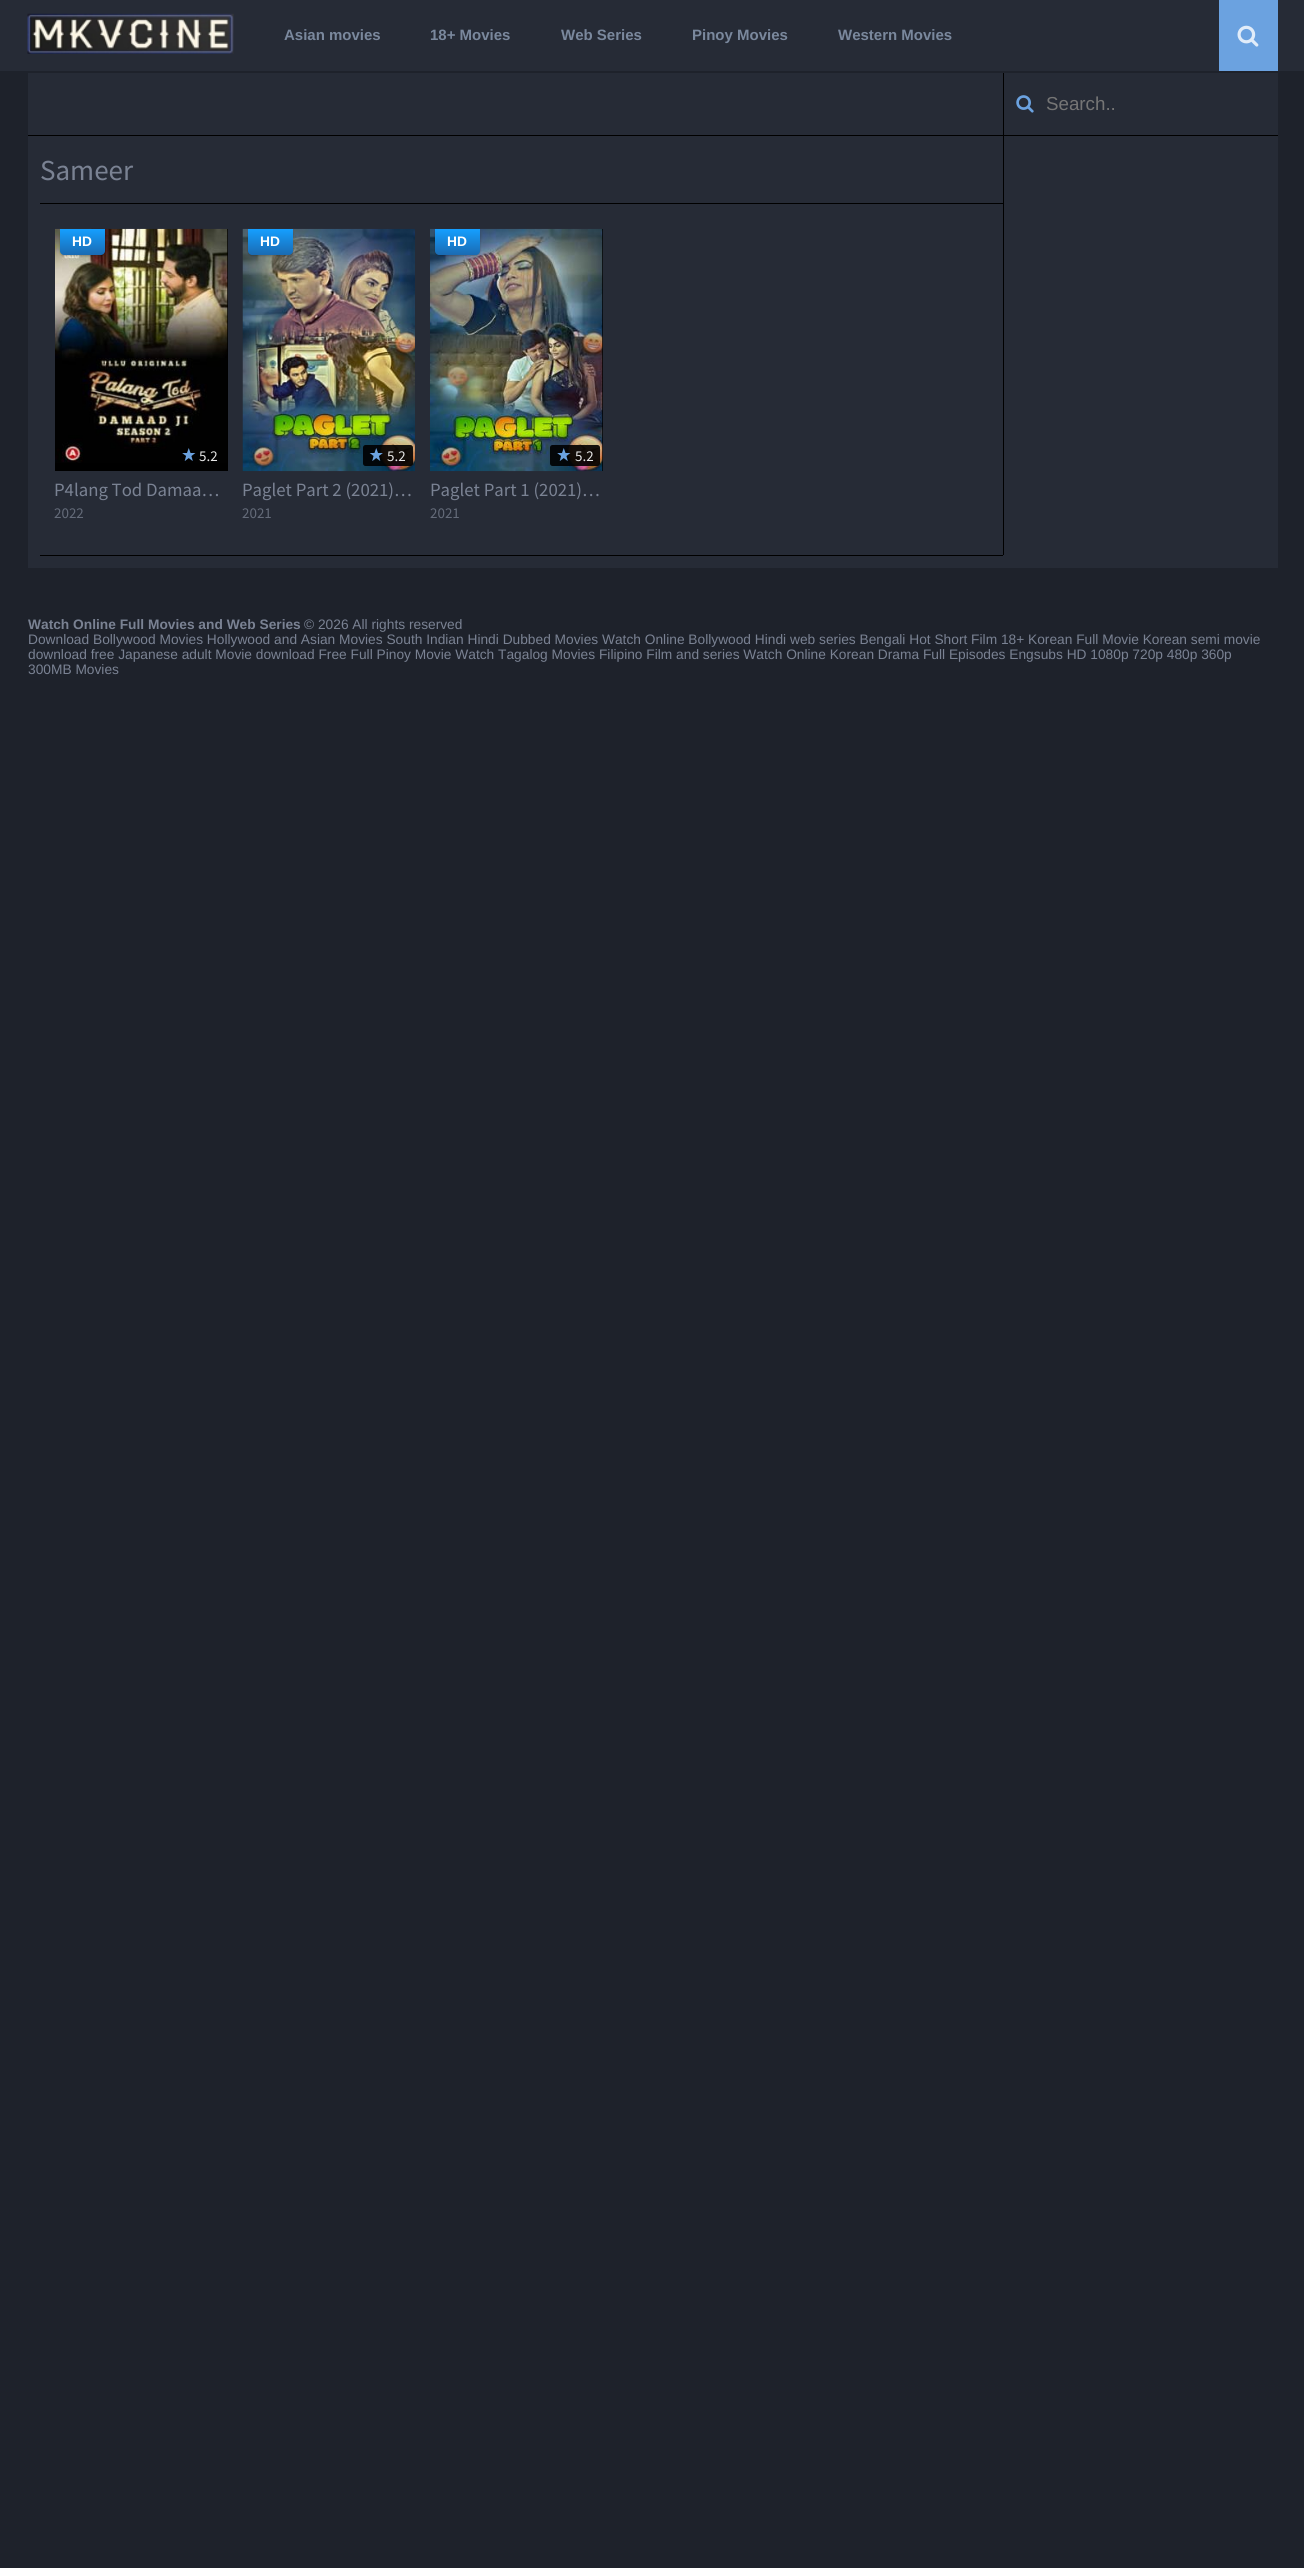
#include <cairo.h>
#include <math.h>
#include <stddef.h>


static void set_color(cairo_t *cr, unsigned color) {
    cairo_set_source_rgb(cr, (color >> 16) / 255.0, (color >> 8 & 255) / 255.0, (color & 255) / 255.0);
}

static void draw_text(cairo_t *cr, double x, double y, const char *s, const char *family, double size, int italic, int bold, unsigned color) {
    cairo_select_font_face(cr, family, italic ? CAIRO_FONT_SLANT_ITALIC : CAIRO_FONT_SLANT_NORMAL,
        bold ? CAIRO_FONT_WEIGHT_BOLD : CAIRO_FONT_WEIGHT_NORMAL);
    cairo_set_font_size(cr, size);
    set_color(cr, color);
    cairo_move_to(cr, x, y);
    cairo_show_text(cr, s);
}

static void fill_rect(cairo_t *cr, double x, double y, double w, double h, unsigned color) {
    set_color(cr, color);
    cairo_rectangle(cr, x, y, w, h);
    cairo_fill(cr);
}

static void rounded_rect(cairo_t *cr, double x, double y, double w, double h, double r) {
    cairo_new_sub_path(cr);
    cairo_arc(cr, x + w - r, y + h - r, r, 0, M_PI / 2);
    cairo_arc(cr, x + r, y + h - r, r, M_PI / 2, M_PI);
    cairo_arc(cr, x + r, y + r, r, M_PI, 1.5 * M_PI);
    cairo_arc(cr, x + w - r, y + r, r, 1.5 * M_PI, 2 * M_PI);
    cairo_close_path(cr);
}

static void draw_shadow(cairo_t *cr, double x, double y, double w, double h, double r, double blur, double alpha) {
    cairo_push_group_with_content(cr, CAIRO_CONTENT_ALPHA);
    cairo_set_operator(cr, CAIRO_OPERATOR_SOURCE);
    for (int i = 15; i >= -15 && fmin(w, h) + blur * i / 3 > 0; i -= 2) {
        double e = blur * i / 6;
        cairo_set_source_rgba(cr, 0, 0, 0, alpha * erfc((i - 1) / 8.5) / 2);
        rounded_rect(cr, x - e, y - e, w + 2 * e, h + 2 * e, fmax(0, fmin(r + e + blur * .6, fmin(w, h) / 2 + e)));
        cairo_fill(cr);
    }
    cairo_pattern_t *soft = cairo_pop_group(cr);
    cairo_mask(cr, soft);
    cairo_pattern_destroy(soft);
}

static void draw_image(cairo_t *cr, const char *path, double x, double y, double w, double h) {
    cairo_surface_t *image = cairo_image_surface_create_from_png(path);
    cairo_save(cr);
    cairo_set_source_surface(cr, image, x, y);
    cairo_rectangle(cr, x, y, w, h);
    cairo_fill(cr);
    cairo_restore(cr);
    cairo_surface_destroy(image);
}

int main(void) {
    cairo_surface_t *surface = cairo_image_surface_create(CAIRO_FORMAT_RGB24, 1304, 2568);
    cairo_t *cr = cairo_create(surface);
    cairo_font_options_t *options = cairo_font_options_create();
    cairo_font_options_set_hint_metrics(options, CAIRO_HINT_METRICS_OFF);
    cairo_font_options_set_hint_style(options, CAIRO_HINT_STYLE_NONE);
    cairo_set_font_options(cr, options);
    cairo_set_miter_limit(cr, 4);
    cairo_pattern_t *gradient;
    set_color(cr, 0x1E222B);
    cairo_paint(cr);
    fill_rect(cr, 0, 0, 1304, 71, 0x262B36);
    draw_image(cr, "assets/img1.png", 27, 13, 207, 41);
    draw_text(cr, 284, 40, "Asian movies", "Liberation Sans", 15, 0, 1, 0x7A889D);
    draw_text(cr, 430, 40, "18+ Movies", "Liberation Sans", 15, 0, 1, 0x7A889D);
    draw_text(cr, 561, 40, "Web Series", "Liberation Sans", 15, 0, 1, 0x7A889D);
    draw_text(cr, 692, 40, "Pinoy Movies", "Liberation Sans", 15, 0, 1, 0x7A889D);
    draw_text(cr, 838, 40, "Western Movies", "Liberation Sans", 15, 0, 1, 0x7A889D);
    fill_rect(cr, 1219, 0, 59, 71, 0x6BA2E0);
    draw_image(cr, "assets/img2.png", 1237, 25, 22, 22);
    fill_rect(cr, 28, 73, 1250, 495, 0x262B36);
    fill_rect(cr, 28, 135, 1250, 1, 0x000000);
    fill_rect(cr, 1003, 73, 1, 62, 0x000000);
    draw_image(cr, "assets/img3.png", 1016, 95, 18, 18);
    draw_text(cr, 1046, 110, "Search..", "Liberation Sans", 18.75, 0, 0, 0x757575);
    fill_rect(cr, 1003, 136, 1, 419, 0x000000);
    fill_rect(cr, 40, 203, 963, 1, 0x000000);
    draw_text(cr, 40, 180, "Sameer", "Source Sans Pro", 29, 0, 0, 0x7A8293);
    fill_rect(cr, 55, 229, 173, 242, 0x000000);
    draw_image(cr, "assets/img4.png", 55, 228, 173, 235);
    set_color(cr, 0x000000);
    draw_shadow(cr, 60, 230, 45, 26, 4, 1, 0.25);
    gradient = cairo_pattern_create_linear(83, 229, 83, 255);
    cairo_pattern_add_color_stop_rgba(gradient, 0, 0.082, 0.624, 1, 1);
    cairo_pattern_add_color_stop_rgba(gradient, 1, 0.102, 0.42, 0.702, 1);
    cairo_set_source(cr, gradient);
    cairo_pattern_destroy(gradient);
    cairo_new_path(cr);
    cairo_move_to(cr, 60, 229);
    cairo_line_to(cr, 105, 229);
    cairo_line_to(cr, 105, 251);
    cairo_curve_to(cr, 105, 253, 103, 255, 101, 255);
    cairo_line_to(cr, 64, 255);
    cairo_curve_to(cr, 62, 255, 60, 253, 60, 251);
    cairo_close_path(cr);
    cairo_fill(cr);
    draw_text(cr, 72, 246, "HD", "Liberation Sans", 13.75, 0, 1, 0xFFFFFF);
    draw_image(cr, "assets/img5.png", 182, 448, 14, 13);
    draw_text(cr, 199, 461, "5.2", "Source Sans Pro", 15, 0, 0, 0xE6E6E6);
    draw_text(cr, 54, 496, "P4lang Tod Damaa…", "Source Sans Pro", 18.75, 0, 0, 0x7A8293);
    draw_text(cr, 54, 518, "2022", "Source Sans Pro", 15, 0, 0, 0x646B79);
    draw_image(cr, "assets/img6.png", 242, 228, 173, 244);
    set_color(cr, 0x000000);
    draw_shadow(cr, 248, 230, 45, 26, 4, 1, 0.25);
    gradient = cairo_pattern_create_linear(270, 229, 270, 255);
    cairo_pattern_add_color_stop_rgba(gradient, 0, 0.082, 0.624, 1, 1);
    cairo_pattern_add_color_stop_rgba(gradient, 1, 0.102, 0.42, 0.702, 1);
    cairo_set_source(cr, gradient);
    cairo_pattern_destroy(gradient);
    cairo_new_path(cr);
    cairo_move_to(cr, 248, 229);
    cairo_line_to(cr, 293, 229);
    cairo_line_to(cr, 293, 251);
    cairo_curve_to(cr, 293, 253, 291, 255, 289, 255);
    cairo_line_to(cr, 252, 255);
    cairo_curve_to(cr, 250, 255, 248, 253, 248, 251);
    cairo_close_path(cr);
    cairo_fill(cr);
    draw_text(cr, 260, 246, "HD", "Liberation Sans", 13.75, 0, 1, 0xFFFFFF);
    cairo_set_source_rgba(cr, 0, 0, 0, 0.9);
    rounded_rect(cr, 363, 445, 50, 21, 2.5);
    cairo_fill(cr);
    draw_image(cr, "assets/img7.png", 369, 448, 14, 13);
    draw_text(cr, 387, 461, "5.2", "Source Sans Pro", 15, 0, 0, 0xE6E6E6);
    draw_text(cr, 242, 496, "Paglet Part 2 (2021)…", "Source Sans Pro", 18.75, 0, 0, 0x7A8293);
    draw_text(cr, 242, 518, "2021", "Source Sans Pro", 15, 0, 0, 0x646B79);
    fill_rect(cr, 602, 229, 1, 242, 0x000000);
    draw_image(cr, "assets/img8.png", 430, 228, 173, 244);
    set_color(cr, 0x000000);
    draw_shadow(cr, 435, 230, 45, 26, 4, 1, 0.25);
    gradient = cairo_pattern_create_linear(458, 229, 458, 255);
    cairo_pattern_add_color_stop_rgba(gradient, 0, 0.082, 0.624, 1, 1);
    cairo_pattern_add_color_stop_rgba(gradient, 1, 0.102, 0.42, 0.702, 1);
    cairo_set_source(cr, gradient);
    cairo_pattern_destroy(gradient);
    cairo_new_path(cr);
    cairo_move_to(cr, 435, 229);
    cairo_line_to(cr, 480, 229);
    cairo_line_to(cr, 480, 251);
    cairo_curve_to(cr, 480, 253, 478, 255, 476, 255);
    cairo_line_to(cr, 439, 255);
    cairo_curve_to(cr, 437, 255, 435, 253, 435, 251);
    cairo_close_path(cr);
    cairo_fill(cr);
    draw_text(cr, 447, 246, "HD", "Liberation Sans", 13.75, 0, 1, 0xFFFFFF);
    cairo_set_source_rgba(cr, 0, 0, 0, 0.9);
    rounded_rect(cr, 550, 445, 50, 21, 2.5);
    cairo_fill(cr);
    draw_image(cr, "assets/img9.png", 557, 448, 14, 13);
    draw_text(cr, 575, 461, "5.2", "Source Sans Pro", 15, 0, 0, 0xE6E6E6);
    draw_text(cr, 430, 496, "Paglet Part 1 (2021)…", "Source Sans Pro", 18.75, 0, 0, 0x7A8293);
    draw_text(cr, 430, 518, "2021", "Source Sans Pro", 15, 0, 0, 0x646B79);
    fill_rect(cr, 40, 555, 963, 1, 0x000000);
    draw_text(cr, 28, 629, "Watch Online Full Movies and Web Series", "Liberation Sans", 13.75, 0, 1, 0x7A8293);
    draw_text(cr, 304, 629, "© 2026 All rights reserved", "Liberation Sans", 13.75, 0, 0, 0x7A8293);
    draw_text(cr, 28, 644, "Download Bollywood Movies Hollywood and Asian Movies South Indian Hindi Dubbed Movies Watch Online Bollywood Hindi web series Bengali Hot Short Film 18+ Korean Full Movie Korean semi movie", "Liberation Sans", 13.75, 0, 0, 0x7A8293);
    draw_text(cr, 28, 659, "download free Japanese adult Movie download Free Full Pinoy Movie Watch Tagalog Movies Filipino Film and series Watch Online Korean Drama Full Episodes Engsubs HD 1080p 720p 480p 360p", "Liberation Sans", 13.75, 0, 0, 0x7A8293);
    draw_text(cr, 28, 674, "300MB Movies", "Liberation Sans", 13.75, 0, 0, 0x7A8293);
    cairo_surface_write_to_png(surface, "output.png");
    cairo_font_options_destroy(options);
    cairo_destroy(cr);
    cairo_surface_destroy(surface);
    return 0;
}
